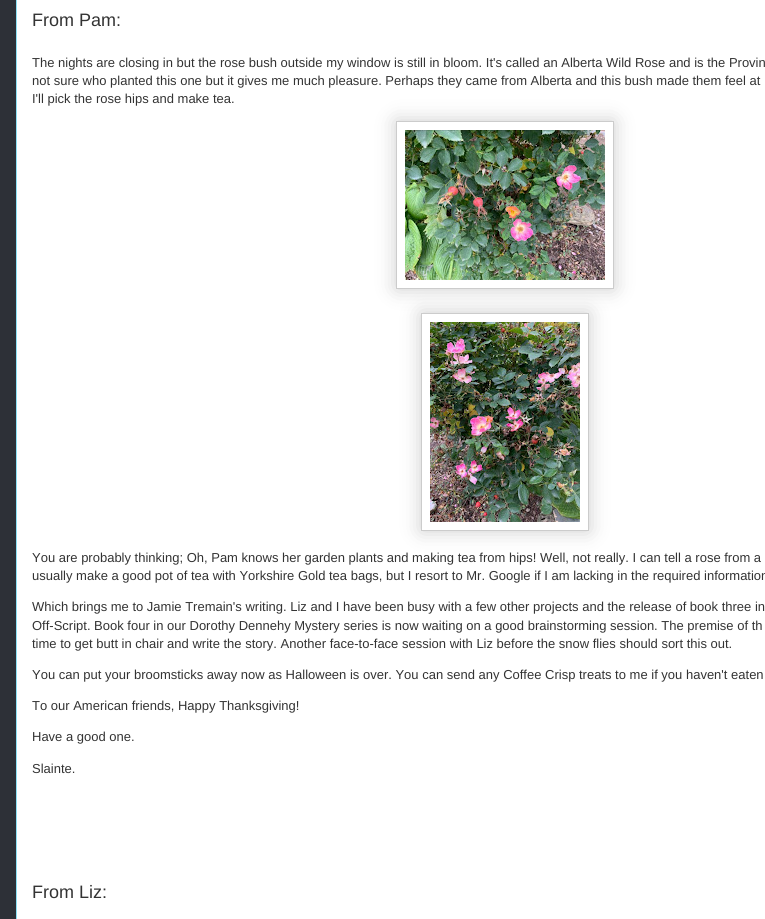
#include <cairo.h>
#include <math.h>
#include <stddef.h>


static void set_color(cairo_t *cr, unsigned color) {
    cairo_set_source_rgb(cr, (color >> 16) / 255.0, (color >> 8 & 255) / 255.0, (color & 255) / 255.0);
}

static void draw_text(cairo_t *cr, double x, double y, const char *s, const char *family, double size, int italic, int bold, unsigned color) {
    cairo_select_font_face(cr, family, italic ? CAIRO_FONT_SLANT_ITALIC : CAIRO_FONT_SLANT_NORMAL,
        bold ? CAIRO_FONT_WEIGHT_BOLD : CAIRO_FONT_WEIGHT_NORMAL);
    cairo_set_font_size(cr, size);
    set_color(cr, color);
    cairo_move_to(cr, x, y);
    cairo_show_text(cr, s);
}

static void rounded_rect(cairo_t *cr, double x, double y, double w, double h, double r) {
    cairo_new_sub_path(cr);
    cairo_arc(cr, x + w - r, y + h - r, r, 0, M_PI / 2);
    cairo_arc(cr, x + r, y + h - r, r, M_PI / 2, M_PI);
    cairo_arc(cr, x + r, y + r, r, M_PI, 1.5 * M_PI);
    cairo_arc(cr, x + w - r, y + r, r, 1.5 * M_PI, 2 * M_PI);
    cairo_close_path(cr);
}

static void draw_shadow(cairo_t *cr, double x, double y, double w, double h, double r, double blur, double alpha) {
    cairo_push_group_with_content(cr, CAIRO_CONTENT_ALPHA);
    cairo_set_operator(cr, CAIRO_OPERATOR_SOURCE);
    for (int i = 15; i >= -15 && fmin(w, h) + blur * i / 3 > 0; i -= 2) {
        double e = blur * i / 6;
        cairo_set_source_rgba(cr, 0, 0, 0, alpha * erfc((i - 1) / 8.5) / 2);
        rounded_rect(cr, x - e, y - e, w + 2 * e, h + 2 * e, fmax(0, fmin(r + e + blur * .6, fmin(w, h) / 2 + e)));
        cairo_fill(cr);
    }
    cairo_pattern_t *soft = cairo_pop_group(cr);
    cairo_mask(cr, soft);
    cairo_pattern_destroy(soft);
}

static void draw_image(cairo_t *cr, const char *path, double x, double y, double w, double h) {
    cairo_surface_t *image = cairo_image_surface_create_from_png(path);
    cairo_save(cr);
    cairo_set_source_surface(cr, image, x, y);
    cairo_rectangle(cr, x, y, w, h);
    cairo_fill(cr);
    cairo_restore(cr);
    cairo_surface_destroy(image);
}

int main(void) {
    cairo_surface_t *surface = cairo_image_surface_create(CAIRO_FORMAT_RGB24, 765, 919);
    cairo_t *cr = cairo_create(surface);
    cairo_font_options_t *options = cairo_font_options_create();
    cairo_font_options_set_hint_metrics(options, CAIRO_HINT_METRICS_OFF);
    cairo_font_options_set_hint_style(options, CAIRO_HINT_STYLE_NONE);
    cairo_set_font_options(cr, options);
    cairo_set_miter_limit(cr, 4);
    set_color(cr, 0x2D3037);
    cairo_paint(cr);
    set_color(cr, 0xFFFFFF);
    cairo_rectangle(cr, 16.5, -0.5, 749, 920);
    cairo_fill_preserve(cr);
    set_color(cr, 0x8CE1F5);
    cairo_set_line_width(cr, 1);
    cairo_stroke(cr);
    draw_text(cr, 32, 26, "From Pam:", "Liberation Sans", 18, 0, 0, 0x333333);
    draw_text(cr, 32, 67, "The nights are closing in but the rose bush outside my window is still in bloom. It's called an Alberta Wild Rose and is the Provin", "Liberation Sans", 13, 0, 0, 0x333333);
    draw_text(cr, 32, 85, "not sure who planted this one but it gives me much pleasure. Perhaps they came from Alberta and this bush made them feel at", "Liberation Sans", 13, 0, 0, 0x333333);
    draw_text(cr, 32, 103, "I'll pick the rose hips and make tea.", "Liberation Sans", 13, 0, 0, 0x333333);
    cairo_save(cr);
    cairo_set_fill_rule(cr, CAIRO_FILL_RULE_EVEN_ODD);
    cairo_new_path(cr);
    cairo_move_to(cr, 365, 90);
    cairo_line_to(cr, 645, 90);
    cairo_line_to(cr, 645, 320);
    cairo_line_to(cr, 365, 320);
    cairo_close_path(cr);
    cairo_move_to(cr, 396, 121);
    cairo_line_to(cr, 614, 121);
    cairo_line_to(cr, 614, 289);
    cairo_line_to(cr, 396, 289);
    cairo_close_path(cr);
    cairo_clip(cr);
    set_color(cr, 0x000000);
    draw_shadow(cr, 396, 121, 218, 168, 0, 10, 0.2);
    cairo_restore(cr);
    cairo_rectangle(cr, 396.5, 121.5, 217, 167);
    set_color(cr, 0xCCCCCC);
    cairo_stroke(cr);
    draw_image(cr, "assets/img1.png", 405, 130, 200, 150);
    cairo_save(cr);
    cairo_set_fill_rule(cr, CAIRO_FILL_RULE_EVEN_ODD);
    cairo_new_path(cr);
    cairo_move_to(cr, 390, 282);
    cairo_line_to(cr, 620, 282);
    cairo_line_to(cr, 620, 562);
    cairo_line_to(cr, 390, 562);
    cairo_close_path(cr);
    cairo_move_to(cr, 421, 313);
    cairo_line_to(cr, 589, 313);
    cairo_line_to(cr, 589, 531);
    cairo_line_to(cr, 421, 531);
    cairo_close_path(cr);
    cairo_clip(cr);
    set_color(cr, 0x000000);
    draw_shadow(cr, 421, 313, 168, 218, 0, 10, 0.2);
    cairo_restore(cr);
    cairo_rectangle(cr, 421.5, 313.5, 167, 217);
    cairo_stroke(cr);
    draw_image(cr, "assets/img2.png", 430, 322, 150, 200);
    draw_text(cr, 32, 562, "You are probably thinking; Oh, Pam knows her garden plants and making tea from hips! Well, not really. I can tell a rose from a", "Liberation Sans", 13, 0, 0, 0x333333);
    draw_text(cr, 32, 580, "usually make a good pot of tea with Yorkshire Gold tea bags, but I resort to Mr. Google if I am lacking in the required information", "Liberation Sans", 13, 0, 0, 0x333333);
    draw_text(cr, 32, 611, "Which brings me to Jamie Tremain's writing. Liz and I have been busy with a few other projects and the release of book three in", "Liberation Sans", 13, 0, 0, 0x333333);
    draw_text(cr, 32, 630, "Off-Script. Book four in our Dorothy Dennehy Mystery series is now waiting on a good brainstorming session. The premise of th", "Liberation Sans", 13, 0, 0, 0x333333);
    draw_text(cr, 32, 648, "time to get butt in chair and write the story. Another face-to-face session with Liz before the snow flies should sort this out.", "Liberation Sans", 13, 0, 0, 0x333333);
    draw_text(cr, 32, 679, "You can put your broomsticks away now as Halloween is over. You can send any Coffee Crisp treats to me if you haven't eaten", "Liberation Sans", 13, 0, 0, 0x333333);
    draw_text(cr, 32, 710, "To our American friends, Happy Thanksgiving!", "Liberation Sans", 13, 0, 0, 0x333333);
    draw_text(cr, 32, 741, "Have a good one.", "Liberation Sans", 13, 0, 0, 0x333333);
    draw_text(cr, 32, 773, "Slainte.", "Liberation Sans", 13, 0, 0, 0x333333);
    draw_text(cr, 32, 898, "From Liz:", "Liberation Sans", 18, 0, 0, 0x333333);
    cairo_surface_write_to_png(surface, "output.png");
    cairo_font_options_destroy(options);
    cairo_destroy(cr);
    cairo_surface_destroy(surface);
    return 0;
}
